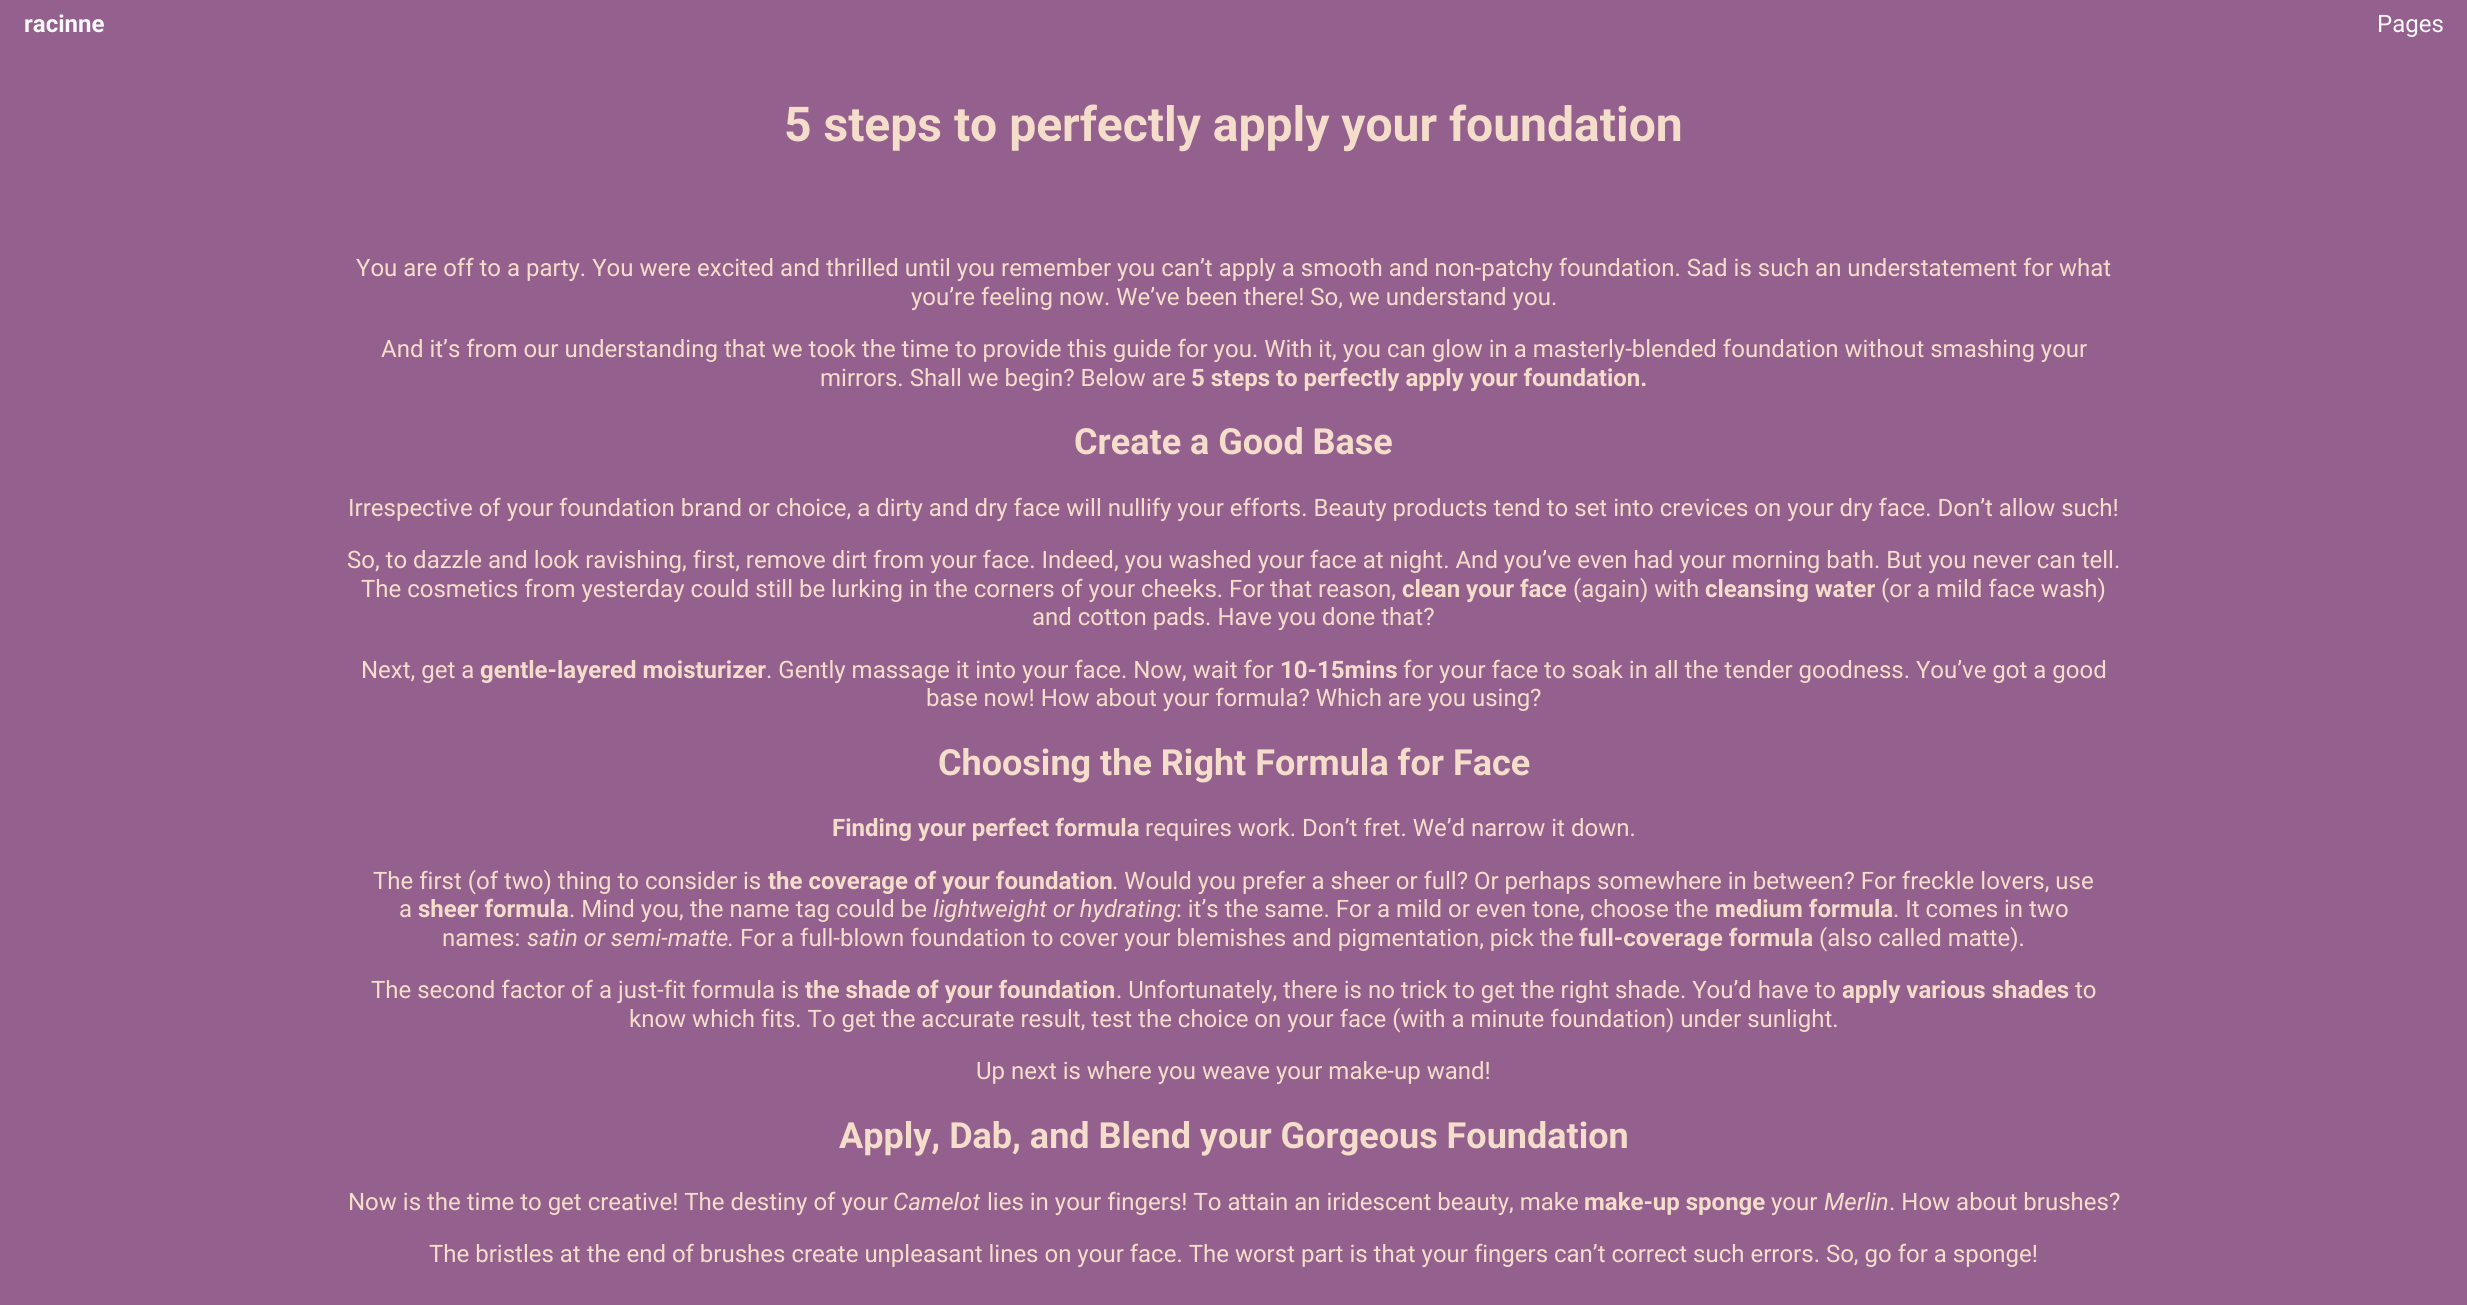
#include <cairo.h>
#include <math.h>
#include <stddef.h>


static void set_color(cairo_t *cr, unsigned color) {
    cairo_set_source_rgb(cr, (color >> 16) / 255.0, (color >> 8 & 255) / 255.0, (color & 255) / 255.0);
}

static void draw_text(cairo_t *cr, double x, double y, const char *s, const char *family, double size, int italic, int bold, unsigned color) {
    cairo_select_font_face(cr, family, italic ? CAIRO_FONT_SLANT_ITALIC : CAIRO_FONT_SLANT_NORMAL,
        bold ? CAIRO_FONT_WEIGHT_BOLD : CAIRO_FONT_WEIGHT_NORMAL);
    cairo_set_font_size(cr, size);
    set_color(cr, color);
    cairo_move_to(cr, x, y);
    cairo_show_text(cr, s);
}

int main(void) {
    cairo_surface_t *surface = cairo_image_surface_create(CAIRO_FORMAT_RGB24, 2467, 1305);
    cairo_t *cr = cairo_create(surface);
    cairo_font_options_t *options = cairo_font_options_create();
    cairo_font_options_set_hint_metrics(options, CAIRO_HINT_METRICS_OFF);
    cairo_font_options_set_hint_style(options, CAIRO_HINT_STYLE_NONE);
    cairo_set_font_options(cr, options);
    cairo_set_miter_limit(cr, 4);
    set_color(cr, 0x94618E);
    cairo_paint(cr);
    draw_text(cr, 24, 32, "racinne", "Roboto", 24, 0, 1, 0xF9F9F9);
    draw_text(cr, 2377, 32, "Pages", "Roboto", 24, 0, 0, 0xF9F9F9);
    draw_text(cr, 784, 141, "5 steps to perfectly apply your foundation", "Roboto", 48, 0, 1, 0xF4DECB);
    draw_text(cr, 356, 276, "You are off to a party. You were excited and thrilled until you remember you can’t apply a smooth and non-patchy foundation. Sad is such an understatement for what", "Roboto", 24, 0, 0, 0xF4DECB);
    draw_text(cr, 911, 305, "you’re feeling now. We’ve been there! So, we understand you.", "Roboto", 24, 0, 0, 0xF4DECB);
    draw_text(cr, 381, 357, "And it’s from our understanding that we took the time to provide this guide for you. With it, you can glow in a masterly-blended foundation without smashing your", "Roboto", 24, 0, 0, 0xF4DECB);
    draw_text(cr, 820, 386, "mirrors. Shall we begin? Below are", "Roboto", 24, 0, 0, 0xF4DECB);
    draw_text(cr, 1191, 386, "5 steps to perfectly apply your foundation.", "Roboto", 24, 0, 1, 0xF4DECB);
    draw_text(cr, 1074, 454, "Create a Good Base", "Roboto", 36, 0, 1, 0xF4DECB);
    draw_text(cr, 348, 516, "Irrespective of your foundation brand or choice, a dirty and dry face will nullify your efforts. Beauty products tend to set into crevices on your dry face. Don’t allow such!", "Roboto", 24, 0, 0, 0xF4DECB);
    draw_text(cr, 347, 568, "So, to dazzle and look ravishing, first, remove dirt from your face. Indeed, you washed your face at night. And you’ve even had your morning bath. But you never can tell.", "Roboto", 24, 0, 0, 0xF4DECB);
    draw_text(cr, 361, 597, "The cosmetics from yesterday could still be lurking in the corners of your cheeks. For that reason,", "Roboto", 24, 0, 0, 0xF4DECB);
    draw_text(cr, 1402, 597, "clean your face", "Roboto", 24, 0, 1, 0xF4DECB);
    draw_text(cr, 1573, 597, "(again) with", "Roboto", 24, 0, 0, 0xF4DECB);
    draw_text(cr, 1705, 597, "cleansing water", "Roboto", 24, 0, 1, 0xF4DECB);
    draw_text(cr, 1881, 597, "(or a mild face wash)", "Roboto", 24, 0, 0, 0xF4DECB);
    draw_text(cr, 1032, 625, "and cotton pads. Have you done that?", "Roboto", 24, 0, 0, 0xF4DECB);
    draw_text(cr, 361, 678, "Next, get a", "Roboto", 24, 0, 0, 0xF4DECB);
    draw_text(cr, 480, 678, "gentle-layered moisturizer", "Roboto", 24, 0, 1, 0xF4DECB);
    draw_text(cr, 766, 678, ". Gently massage it into your face. Now, wait for", "Roboto", 24, 0, 0, 0xF4DECB);
    draw_text(cr, 1280, 678, "10-15mins", "Roboto", 24, 0, 1, 0xF4DECB);
    draw_text(cr, 1403, 678, "for your face to soak in all the tender goodness. You’ve got a good", "Roboto", 24, 0, 0, 0xF4DECB);
    draw_text(cr, 926, 706, "base now! How about your formula? Which are you using?", "Roboto", 24, 0, 0, 0xF4DECB);
    draw_text(cr, 938, 775, "Choosing the Right Formula for Face", "Roboto", 36, 0, 1, 0xF4DECB);
    draw_text(cr, 832, 836, "Finding your perfect formula", "Roboto", 24, 0, 1, 0xF4DECB);
    draw_text(cr, 1145, 836, "requires work. Don’t fret. We’d narrow it down.", "Roboto", 24, 0, 0, 0xF4DECB);
    draw_text(cr, 373, 889, "The first (of two) thing to consider is", "Roboto", 24, 0, 0, 0xF4DECB);
    draw_text(cr, 768, 889, "the coverage of your foundation", "Roboto", 24, 0, 1, 0xF4DECB);
    draw_text(cr, 1112, 889, ". Would you prefer a sheer or full? Or perhaps somewhere in between? For freckle lovers, use", "Roboto", 24, 0, 0, 0xF4DECB);
    draw_text(cr, 399, 917, "a", "Roboto", 24, 0, 0, 0xF4DECB);
    draw_text(cr, 418, 917, "sheer formula", "Roboto", 24, 0, 1, 0xF4DECB);
    draw_text(cr, 569, 917, ". Mind you, the name tag could be", "Roboto", 24, 0, 0, 0xF4DECB);
    draw_text(cr, 933, 917, "lightweight or hydrating", "Roboto", 24, 1, 0, 0xF4DECB);
    draw_text(cr, 1176, 917, ": it’s the same. For a mild or even tone, choose the", "Roboto", 24, 0, 0, 0xF4DECB);
    draw_text(cr, 1715, 917, "medium formula", "Roboto", 24, 0, 1, 0xF4DECB);
    draw_text(cr, 1893, 917, ". It comes in two", "Roboto", 24, 0, 0, 0xF4DECB);
    draw_text(cr, 442, 946, "names:", "Roboto", 24, 0, 0, 0xF4DECB);
    draw_text(cr, 527, 946, "satin or semi-matte.", "Roboto", 24, 1, 0, 0xF4DECB);
    draw_text(cr, 740, 946, "For a full-blown foundation to cover your blemishes and pigmentation, pick the", "Roboto", 24, 0, 0, 0xF4DECB);
    draw_text(cr, 1579, 946, "full-coverage formula", "Roboto", 24, 0, 1, 0xF4DECB);
    draw_text(cr, 1819, 946, "(also called matte).", "Roboto", 24, 0, 0, 0xF4DECB);
    draw_text(cr, 371, 998, "The second factor of a just-fit formula is", "Roboto", 24, 0, 0, 0xF4DECB);
    draw_text(cr, 805, 998, "the shade of your foundation", "Roboto", 24, 0, 1, 0xF4DECB);
    draw_text(cr, 1116, 998, ". Unfortunately, there is no trick to get the right shade. You’d have to", "Roboto", 24, 0, 0, 0xF4DECB);
    draw_text(cr, 1842, 998, "apply various shades", "Roboto", 24, 0, 1, 0xF4DECB);
    draw_text(cr, 2075, 998, "to", "Roboto", 24, 0, 0, 0xF4DECB);
    draw_text(cr, 629, 1027, "know which fits. To get the accurate result, test the choice on your face (with a minute foundation) under sunlight.", "Roboto", 24, 0, 0, 0xF4DECB);
    draw_text(cr, 976, 1079, "Up next is where you weave your make-up wand!", "Roboto", 24, 0, 0, 0xF4DECB);
    draw_text(cr, 839, 1148, "Apply, Dab, and Blend your Gorgeous Foundation", "Roboto", 36, 0, 1, 0xF4DECB);
    draw_text(cr, 348, 1210, "Now is the time to get creative! The destiny of your", "Roboto", 24, 0, 0, 0xF4DECB);
    draw_text(cr, 893, 1210, "Camelot", "Roboto", 24, 1, 0, 0xF4DECB);
    draw_text(cr, 987, 1210, "lies in your fingers! To attain an iridescent beauty, make", "Roboto", 24, 0, 0, 0xF4DECB);
    draw_text(cr, 1584, 1210, "make-up sponge", "Roboto", 24, 0, 1, 0xF4DECB);
    draw_text(cr, 1771, 1210, "your", "Roboto", 24, 0, 0, 0xF4DECB);
    draw_text(cr, 1824, 1210, "Merlin", "Roboto", 24, 1, 0, 0xF4DECB);
    draw_text(cr, 1889, 1210, ". How about brushes?", "Roboto", 24, 0, 0, 0xF4DECB);
    draw_text(cr, 429, 1262, "The bristles at the end of brushes create unpleasant lines on your face. The worst part is that your fingers can’t correct such errors. So, go for a sponge!", "Roboto", 24, 0, 0, 0xF4DECB);
    cairo_surface_write_to_png(surface, "output.png");
    cairo_font_options_destroy(options);
    cairo_destroy(cr);
    cairo_surface_destroy(surface);
    return 0;
}
